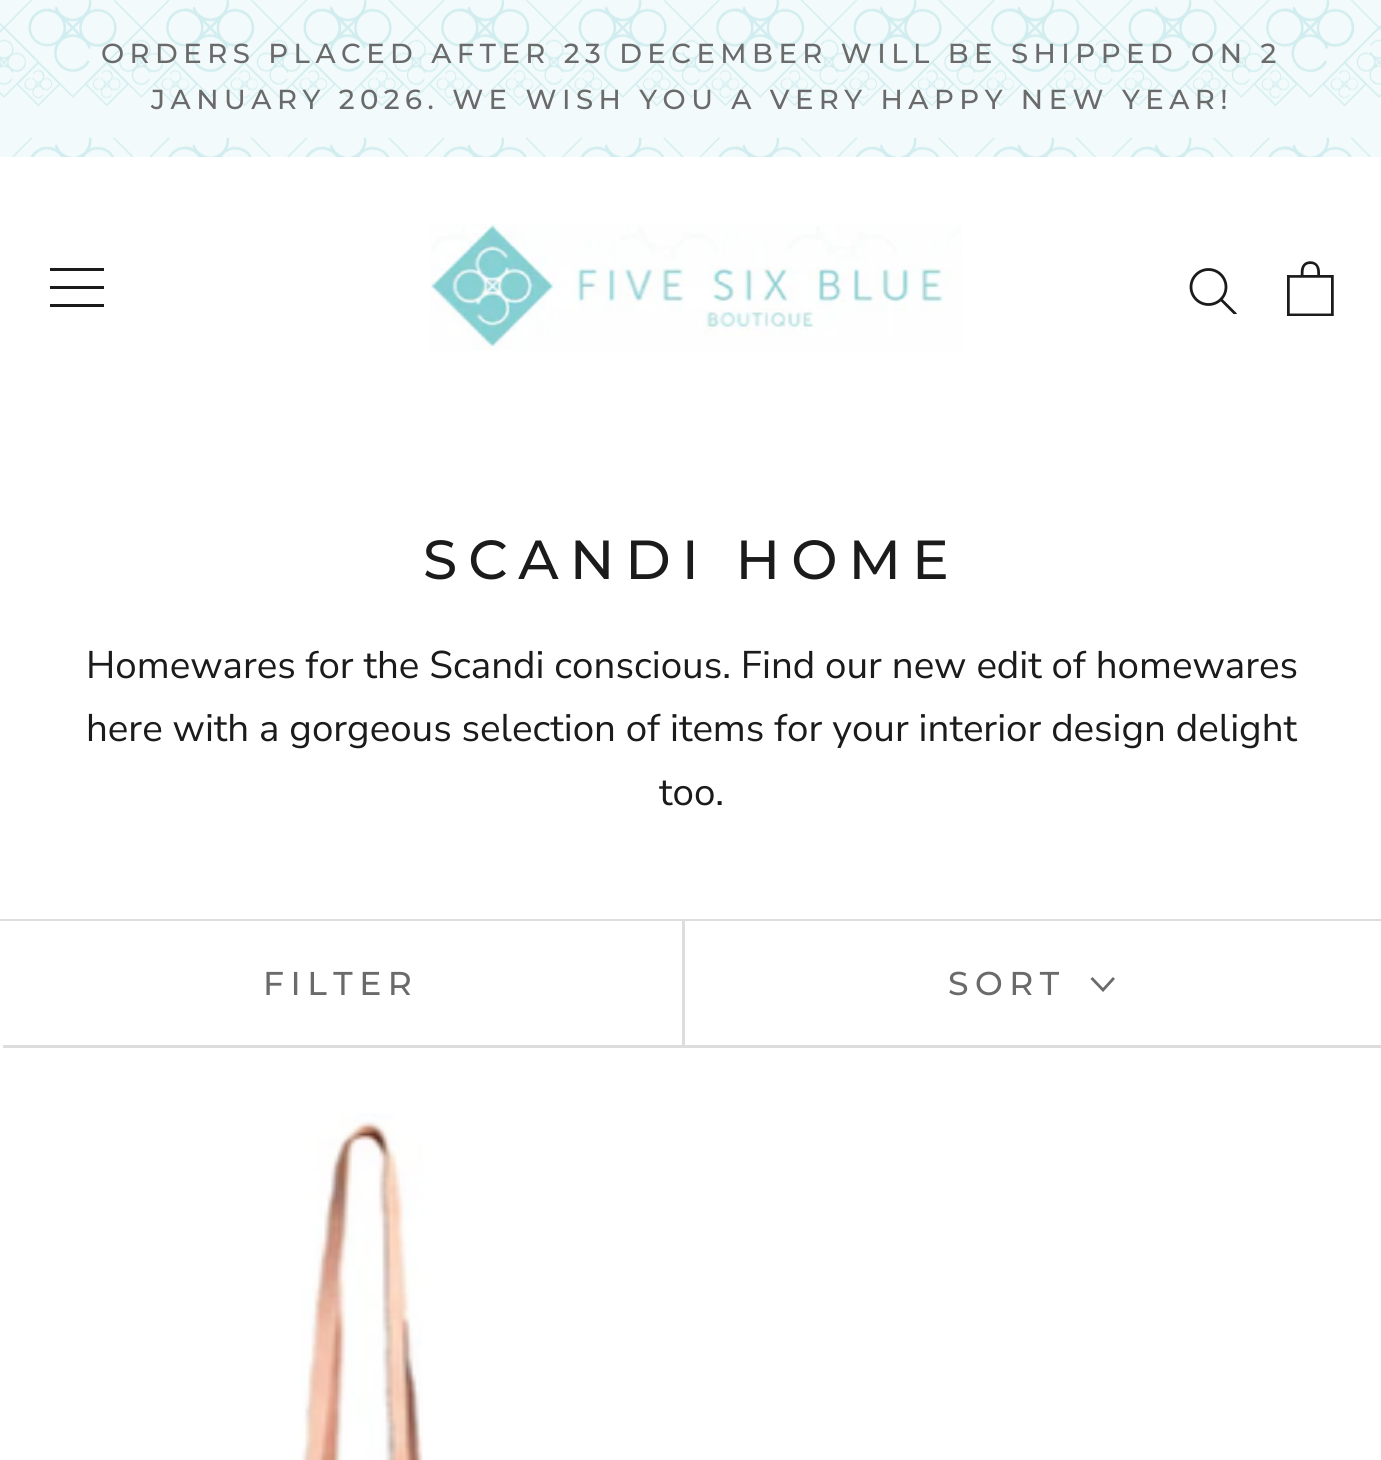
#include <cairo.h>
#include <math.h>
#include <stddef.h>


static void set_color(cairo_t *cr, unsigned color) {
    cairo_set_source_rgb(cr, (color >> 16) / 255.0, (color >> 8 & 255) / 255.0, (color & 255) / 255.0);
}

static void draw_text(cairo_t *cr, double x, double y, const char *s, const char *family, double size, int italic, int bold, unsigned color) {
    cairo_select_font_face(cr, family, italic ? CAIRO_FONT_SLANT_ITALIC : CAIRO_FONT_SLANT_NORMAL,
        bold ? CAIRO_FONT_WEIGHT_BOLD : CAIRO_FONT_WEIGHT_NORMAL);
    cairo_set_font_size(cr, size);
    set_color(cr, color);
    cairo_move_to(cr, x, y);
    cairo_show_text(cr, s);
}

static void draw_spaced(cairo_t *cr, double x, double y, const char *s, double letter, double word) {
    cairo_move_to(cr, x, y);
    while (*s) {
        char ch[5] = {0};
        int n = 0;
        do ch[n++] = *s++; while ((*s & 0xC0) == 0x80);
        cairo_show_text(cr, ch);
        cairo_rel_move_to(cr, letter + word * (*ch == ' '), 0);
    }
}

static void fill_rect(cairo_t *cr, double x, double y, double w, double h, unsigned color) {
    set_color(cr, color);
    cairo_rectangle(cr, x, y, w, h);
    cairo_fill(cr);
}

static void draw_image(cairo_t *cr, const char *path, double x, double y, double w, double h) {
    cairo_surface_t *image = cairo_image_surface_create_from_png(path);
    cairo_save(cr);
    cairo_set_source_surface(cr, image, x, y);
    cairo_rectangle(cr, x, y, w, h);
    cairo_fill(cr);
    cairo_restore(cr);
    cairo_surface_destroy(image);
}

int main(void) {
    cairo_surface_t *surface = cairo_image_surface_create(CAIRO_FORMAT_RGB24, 1381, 1460);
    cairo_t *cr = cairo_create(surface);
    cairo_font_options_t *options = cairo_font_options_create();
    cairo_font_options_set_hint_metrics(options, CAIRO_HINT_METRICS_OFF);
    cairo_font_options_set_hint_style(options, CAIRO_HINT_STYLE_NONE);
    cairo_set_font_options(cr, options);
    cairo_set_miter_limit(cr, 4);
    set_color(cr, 0xFFFFFF);
    cairo_paint(cr);
    fill_rect(cr, 0, 0, 1381, 157, 0xF2FAFB);
    draw_image(cr, "assets/img1.png", 0, 0, 1381, 157);
    cairo_select_font_face(cr, "Montserrat Medium", CAIRO_FONT_SLANT_NORMAL, CAIRO_FONT_WEIGHT_NORMAL);
    cairo_set_font_size(cr, 27.5);
    set_color(cr, 0x6A6A6A);
    draw_spaced(cr, 101, 63, "ORDERS PLACED AFTER 23 DECEMBER WILL BE SHIPPED ON 2", 5.5, 0);
    draw_spaced(cr, 151, 109, "JANUARY 2026. WE WISH YOU A VERY HAPPY NEW YEAR!", 5.5, 0);
    set_color(cr, 0x1C1B1B);
    cairo_new_path(cr);
    cairo_move_to(cr, 50, 307);
    cairo_line_to(cr, 50, 304);
    cairo_line_to(cr, 104, 304);
    cairo_line_to(cr, 104, 307);
    cairo_close_path(cr);
    cairo_move_to(cr, 50, 286);
    cairo_line_to(cr, 104, 286);
    cairo_line_to(cr, 104, 289);
    cairo_line_to(cr, 50, 289);
    cairo_close_path(cr);
    cairo_move_to(cr, 50, 268);
    cairo_line_to(cr, 104, 268);
    cairo_line_to(cr, 104, 271);
    cairo_line_to(cr, 50, 271);
    cairo_close_path(cr);
    cairo_fill(cr);
    draw_image(cr, "assets/img2.png", 430, 224, 532, 127);
    cairo_save(cr);
    cairo_rectangle(cr, 1188, 267, 50, 47);
    cairo_clip(cr);
    cairo_new_path(cr);
    cairo_move_to(cr, 1235, 313.5);
    cairo_line_to(cr, 1221, 299.5);
    cairo_set_line_width(cr, 2.8);
    cairo_set_line_cap(cr, CAIRO_LINE_CAP_SQUARE);
    cairo_stroke(cr);
    cairo_restore(cr);
    cairo_arc(cr, 1208.5, 287, 17.5, 0, 2 * M_PI);
    cairo_set_line_width(cr, 2.8);
    cairo_stroke(cr);
    draw_image(cr, "assets/img3.png", 1287, 261, 47, 55);
    cairo_set_font_size(cr, 55);
    draw_spaced(cr, 423, 579, "SCANDI HOME", 11, 0);
    draw_text(cr, 86, 678, "Homewares for the Scandi conscious. Find our new edit of homewares", "Nunito Sans", 38.5, 0, 0, 0x1C1B1B);
    draw_text(cr, 86, 741, "here with a gorgeous selection of items for your interior design delight", "Nunito Sans", 38.5, 0, 0, 0x1C1B1B);
    draw_text(cr, 659, 805, "too.", "Nunito Sans", 38.5, 0, 0, 0x1C1B1B);
    set_color(cr, 0xDDDDDD);
    cairo_new_path(cr);
    cairo_move_to(cr, -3, 919);
    cairo_line_to(cr, -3, 1042);
    cairo_line_to(cr, 0, 1042);
    cairo_line_to(cr, 0, 921);
    cairo_line_to(cr, 1381, 921);
    cairo_line_to(cr, 1381, 919);
    cairo_close_path(cr);
    cairo_fill(cr);
    cairo_new_path(cr);
    cairo_move_to(cr, 3, 1045);
    cairo_line_to(cr, 3, 1048);
    cairo_line_to(cr, 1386, 1048);
    cairo_line_to(cr, 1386, 924);
    cairo_line_to(cr, 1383, 924);
    cairo_line_to(cr, 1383, 1045);
    cairo_close_path(cr);
    cairo_fill(cr);
    cairo_select_font_face(cr, "Montserrat Medium", CAIRO_FONT_SLANT_NORMAL, CAIRO_FONT_WEIGHT_NORMAL);
    cairo_set_font_size(cr, 33);
    set_color(cr, 0x6A6A6A);
    draw_spaced(cr, 263, 995, "FILTER", 6.5, 0);
    fill_rect(cr, 682, 921, 3, 124, 0xDDDDDD);
    set_color(cr, 0x6A6A6A);
    draw_spaced(cr, 948, 995, "SORT", 6.5, 0);
    cairo_new_path(cr);
    cairo_move_to(cr, 1113, 979);
    cairo_line_to(cr, 1103, 990);
    cairo_line_to(cr, 1092.5, 979);
    cairo_set_line_cap(cr, CAIRO_LINE_CAP_SQUARE);
    cairo_stroke(cr);
    draw_image(cr, "assets/img4.png", 301, 1113, 122, 347);
    cairo_surface_write_to_png(surface, "output.png");
    cairo_font_options_destroy(options);
    cairo_destroy(cr);
    cairo_surface_destroy(surface);
    return 0;
}
